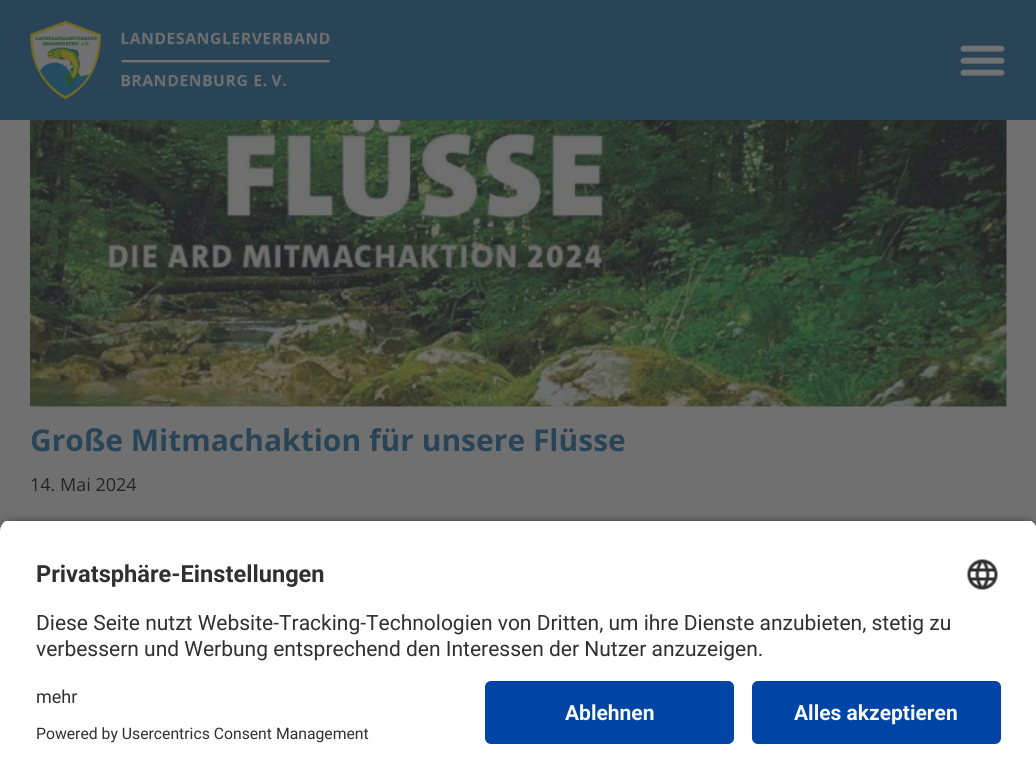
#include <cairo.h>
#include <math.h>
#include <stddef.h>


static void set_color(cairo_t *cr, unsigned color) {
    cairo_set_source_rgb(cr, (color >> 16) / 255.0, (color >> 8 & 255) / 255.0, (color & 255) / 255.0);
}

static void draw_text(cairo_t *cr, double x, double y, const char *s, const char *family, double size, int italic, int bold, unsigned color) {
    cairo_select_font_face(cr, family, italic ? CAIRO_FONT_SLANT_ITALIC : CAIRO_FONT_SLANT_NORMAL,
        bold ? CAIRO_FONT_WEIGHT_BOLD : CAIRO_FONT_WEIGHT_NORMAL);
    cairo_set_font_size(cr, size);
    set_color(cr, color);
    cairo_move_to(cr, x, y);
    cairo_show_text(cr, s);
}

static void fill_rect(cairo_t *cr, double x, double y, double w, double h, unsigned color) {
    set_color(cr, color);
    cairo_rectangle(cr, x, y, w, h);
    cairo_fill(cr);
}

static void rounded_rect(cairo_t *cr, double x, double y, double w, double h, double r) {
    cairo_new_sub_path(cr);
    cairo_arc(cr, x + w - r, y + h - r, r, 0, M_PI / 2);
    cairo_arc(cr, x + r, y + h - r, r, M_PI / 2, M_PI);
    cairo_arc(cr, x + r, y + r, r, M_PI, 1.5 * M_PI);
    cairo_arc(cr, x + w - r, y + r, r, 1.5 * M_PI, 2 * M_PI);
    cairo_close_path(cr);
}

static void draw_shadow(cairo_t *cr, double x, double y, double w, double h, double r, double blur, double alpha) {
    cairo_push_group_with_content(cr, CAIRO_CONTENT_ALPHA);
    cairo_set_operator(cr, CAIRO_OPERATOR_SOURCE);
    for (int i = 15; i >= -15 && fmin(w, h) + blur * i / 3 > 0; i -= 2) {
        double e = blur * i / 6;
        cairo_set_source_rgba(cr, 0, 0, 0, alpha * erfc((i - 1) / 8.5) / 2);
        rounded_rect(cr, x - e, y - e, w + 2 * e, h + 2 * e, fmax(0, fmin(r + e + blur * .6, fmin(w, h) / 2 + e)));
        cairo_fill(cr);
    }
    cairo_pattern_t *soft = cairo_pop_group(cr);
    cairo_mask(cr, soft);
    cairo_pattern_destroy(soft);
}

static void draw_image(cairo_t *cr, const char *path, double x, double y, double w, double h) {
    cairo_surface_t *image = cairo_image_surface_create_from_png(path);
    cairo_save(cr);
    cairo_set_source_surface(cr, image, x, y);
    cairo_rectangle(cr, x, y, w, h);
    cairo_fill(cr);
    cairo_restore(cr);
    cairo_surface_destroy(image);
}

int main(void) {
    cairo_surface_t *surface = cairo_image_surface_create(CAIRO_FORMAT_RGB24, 1036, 779);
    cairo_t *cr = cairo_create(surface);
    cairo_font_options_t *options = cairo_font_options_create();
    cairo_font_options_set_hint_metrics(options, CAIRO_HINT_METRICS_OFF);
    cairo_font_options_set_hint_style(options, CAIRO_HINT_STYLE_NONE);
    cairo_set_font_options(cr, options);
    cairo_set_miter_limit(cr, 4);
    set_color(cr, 0x707070);
    cairo_paint(cr);
    fill_rect(cr, 0, 0, 1036, 120, 0x294456);
    draw_image(cr, "assets/img1.png", 30, 20, 300, 79);
    draw_image(cr, "assets/img2.png", 960, 45, 45, 31);
    draw_image(cr, "assets/img3.png", 30, 120, 977, 287);
    draw_text(cr, 30, 451, "Große Mitmachaktion für unsere Flüsse", "Open Sans", 30, 0, 1, 0x294456);
    draw_text(cr, 30, 491, "14. Mai 2024", "Open Sans", 18, 0, 0, 0x242424);
    set_color(cr, 0x000000);
    draw_shadow(cr, 0, 524, 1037, 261, 12, 5, 0.8);
    cairo_save(cr);
    cairo_new_path(cr);
    cairo_move_to(cr, 12, 519);
    cairo_line_to(cr, 1025, 519);
    cairo_curve_to(cr, 1031.5, 519, 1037, 524.5, 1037, 531);
    cairo_line_to(cr, 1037, 669);
    cairo_line_to(cr, 0, 669);
    cairo_line_to(cr, 0, 531);
    cairo_curve_to(cr, 0, 524.5, 5.5, 519, 12, 519);
    cairo_close_path(cr);
    cairo_clip(cr);
    fill_rect(cr, 0, 521, 1036, 148, 0xFFFFFF);
    cairo_restore(cr);
    draw_text(cr, 36, 582, "Privatsphäre-Einstellungen", "Roboto", 23.6, 0, 1, 0x303030);
    draw_image(cr, "assets/img4.png", 967, 559, 31, 31);
    draw_text(cr, 36, 630, "Diese Seite nutzt Website-Tracking-Technologien von Dritten, um ihre Dienste anzubieten, stetig zu", "Roboto", 21, 0, 0, 0x303030);
    draw_text(cr, 36, 656, "verbessern und Werbung entsprechend den Interessen der Nutzer anzuzeigen.", "Roboto", 21, 0, 0, 0x303030);
    fill_rect(cr, 0, 669, 1036, 110, 0xFFFFFF);
    draw_text(cr, 36, 703, "mehr", "Roboto", 18, 0, 0, 0x303030);
    draw_text(cr, 36, 739, "Powered by Usercentrics Consent Management", "Roboto", 15.75, 0, 0, 0x303030);
    set_color(cr, 0x0045A5);
    rounded_rect(cr, 485, 681, 249, 63, 6);
    cairo_fill(cr);
    draw_text(cr, 565, 720, "Ablehnen", "Roboto", 21, 0, 1, 0xFAFAFA);
    set_color(cr, 0x0045A5);
    rounded_rect(cr, 752, 681, 249, 63, 6);
    cairo_fill(cr);
    draw_text(cr, 794, 720, "Alles akzeptieren", "Roboto", 21, 0, 1, 0xFAFAFA);
    cairo_surface_write_to_png(surface, "output.png");
    cairo_font_options_destroy(options);
    cairo_destroy(cr);
    cairo_surface_destroy(surface);
    return 0;
}
